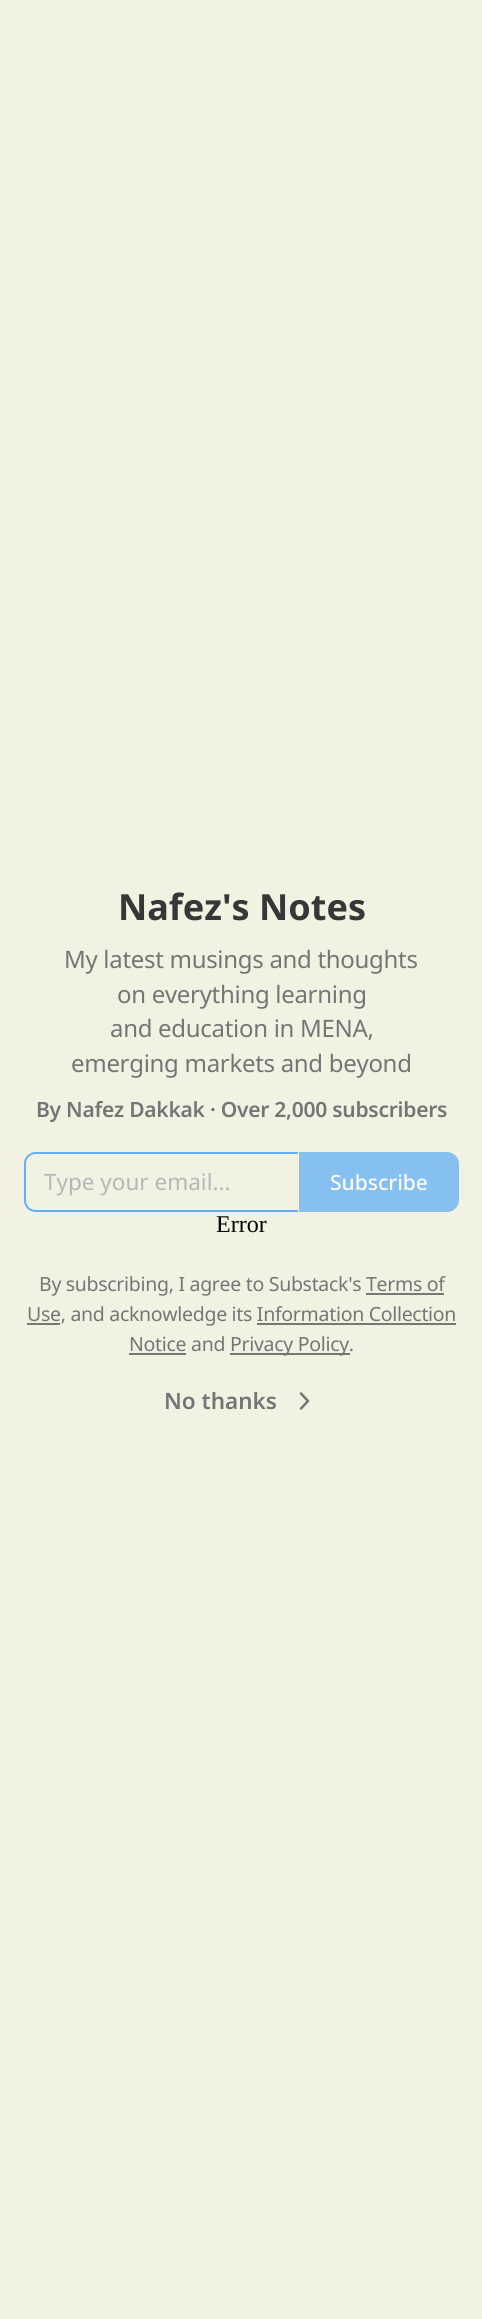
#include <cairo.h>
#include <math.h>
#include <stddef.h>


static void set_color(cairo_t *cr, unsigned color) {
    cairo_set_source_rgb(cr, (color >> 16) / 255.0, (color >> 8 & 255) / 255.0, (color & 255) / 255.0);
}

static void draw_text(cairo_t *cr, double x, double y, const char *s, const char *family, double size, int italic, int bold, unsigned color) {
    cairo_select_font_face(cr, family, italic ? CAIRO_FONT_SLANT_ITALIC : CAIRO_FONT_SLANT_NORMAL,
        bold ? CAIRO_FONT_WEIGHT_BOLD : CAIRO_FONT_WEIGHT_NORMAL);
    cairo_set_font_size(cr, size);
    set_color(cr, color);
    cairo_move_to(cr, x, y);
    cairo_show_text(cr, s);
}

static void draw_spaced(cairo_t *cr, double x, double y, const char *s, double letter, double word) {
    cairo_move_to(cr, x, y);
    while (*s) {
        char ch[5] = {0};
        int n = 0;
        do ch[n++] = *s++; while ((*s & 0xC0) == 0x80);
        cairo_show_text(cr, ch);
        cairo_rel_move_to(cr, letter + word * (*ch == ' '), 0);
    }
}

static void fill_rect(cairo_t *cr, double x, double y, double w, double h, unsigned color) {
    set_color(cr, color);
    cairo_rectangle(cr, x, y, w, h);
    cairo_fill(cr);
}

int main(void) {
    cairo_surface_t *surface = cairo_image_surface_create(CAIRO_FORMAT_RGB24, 482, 2319);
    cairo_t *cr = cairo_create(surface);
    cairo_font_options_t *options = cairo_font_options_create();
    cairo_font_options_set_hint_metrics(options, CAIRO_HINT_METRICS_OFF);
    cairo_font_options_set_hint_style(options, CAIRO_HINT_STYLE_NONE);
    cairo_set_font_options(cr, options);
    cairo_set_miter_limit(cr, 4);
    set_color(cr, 0xF2F2E3);
    cairo_paint(cr);
    draw_text(cr, 118, 920, "Nafez's Notes", "Noto Sans", 36, 0, 1, 0x363737);
    cairo_select_font_face(cr, "Noto Sans", CAIRO_FONT_SLANT_NORMAL, CAIRO_FONT_WEIGHT_NORMAL);
    cairo_set_font_size(cr, 24);
    set_color(cr, 0x757575);
    draw_spaced(cr, 64, 968, "My latest musings and thoughts", -0.3, 0);
    draw_spaced(cr, 117, 1003, "on everything learning", -0.3, 0);
    draw_spaced(cr, 110, 1037, "and education in MENA,", -0.3, 0);
    draw_spaced(cr, 71, 1072, "emerging markets and beyond", -0.3, 0);
    cairo_select_font_face(cr, "Noto Sans SemiBold", CAIRO_FONT_SLANT_NORMAL, CAIRO_FONT_WEIGHT_NORMAL);
    cairo_set_font_size(cr, 21);
    draw_spaced(cr, 36, 1117, "By Nafez Dakkak · Over 2,000 subscribers", -0.25, 0);
    set_color(cr, 0x61AFF4);
    cairo_set_fill_rule(cr, CAIRO_FILL_RULE_EVEN_ODD);
    cairo_new_path(cr);
    cairo_move_to(cr, 36, 1152);
    cairo_line_to(cr, 298, 1152);
    cairo_line_to(cr, 298, 1212);
    cairo_line_to(cr, 36, 1212);
    cairo_curve_to(cr, 29, 1212, 24, 1207, 24, 1200);
    cairo_line_to(cr, 24, 1164);
    cairo_curve_to(cr, 24, 1157, 29, 1152, 36, 1152);
    cairo_close_path(cr);
    cairo_move_to(cr, 36, 1154);
    cairo_line_to(cr, 298, 1154);
    cairo_line_to(cr, 298, 1210);
    cairo_line_to(cr, 36, 1210);
    cairo_curve_to(cr, 30, 1210, 26, 1206, 26, 1200);
    cairo_line_to(cr, 26, 1164);
    cairo_curve_to(cr, 26, 1158, 30, 1154, 36, 1154);
    cairo_close_path(cr);
    cairo_fill(cr);
    draw_text(cr, 44, 1190, "Type your email...", "Noto Sans", 22.5, 0, 0, 0xB6B6B6);
    set_color(cr, 0x85C0F0);
    cairo_new_path(cr);
    cairo_move_to(cr, 300, 1153);
    cairo_line_to(cr, 447, 1153);
    cairo_curve_to(cr, 453, 1153, 458, 1158, 458, 1164);
    cairo_line_to(cr, 458, 1200);
    cairo_curve_to(cr, 458, 1206, 453, 1211, 447, 1211);
    cairo_line_to(cr, 300, 1211);
    cairo_close_path(cr);
    cairo_fill_preserve(cr);
    cairo_stroke(cr);
    draw_text(cr, 330, 1190, "Subscribe", "Noto Sans Medium", 21, 0, 0, 0xFCFCF8);
    draw_text(cr, 216, 1232, "Error", "Liberation Serif", 24, 0, 0, 0x000000);
    cairo_select_font_face(cr, "Noto Sans", CAIRO_FONT_SLANT_NORMAL, CAIRO_FONT_WEIGHT_NORMAL);
    cairo_set_font_size(cr, 19.5);
    set_color(cr, 0x757575);
    draw_spaced(cr, 39, 1291, "By subscribing, I agree to Substack's Terms of", -0.3, 0);
    fill_rect(cr, 27, 1323, 33, 2, 0x777777);
    set_color(cr, 0x757575);
    draw_spaced(cr, 27, 1321, "Use, and acknowledge its Information Collection", -0.3, 0);
    fill_rect(cr, 366, 1293, 78, 2, 0x777777);
    set_color(cr, 0x757575);
    draw_spaced(cr, 129, 1351, "Notice and", -0.3, 0);
    fill_rect(cr, 257, 1323, 199, 2, 0x777777);
    fill_rect(cr, 129, 1353, 57, 2, 0x777777);
    fill_rect(cr, 230, 1353, 120, 2, 0x777777);
    set_color(cr, 0x757575);
    draw_spaced(cr, 230, 1351, "Privacy Policy.", -0.3, 0);
    draw_text(cr, 164, 1409, "No thanks", "Noto Sans SemiBold", 22.5, 0, 0, 0x757575);
    cairo_new_path(cr);
    cairo_move_to(cr, 301, 1408.5);
    cairo_line_to(cr, 308, 1401);
    cairo_line_to(cr, 301, 1393.5);
    cairo_set_line_width(cr, 2.5);
    cairo_set_line_cap(cr, CAIRO_LINE_CAP_ROUND);
    cairo_set_line_join(cr, CAIRO_LINE_JOIN_ROUND);
    cairo_stroke(cr);
    cairo_surface_write_to_png(surface, "output.png");
    cairo_font_options_destroy(options);
    cairo_destroy(cr);
    cairo_surface_destroy(surface);
    return 0;
}
